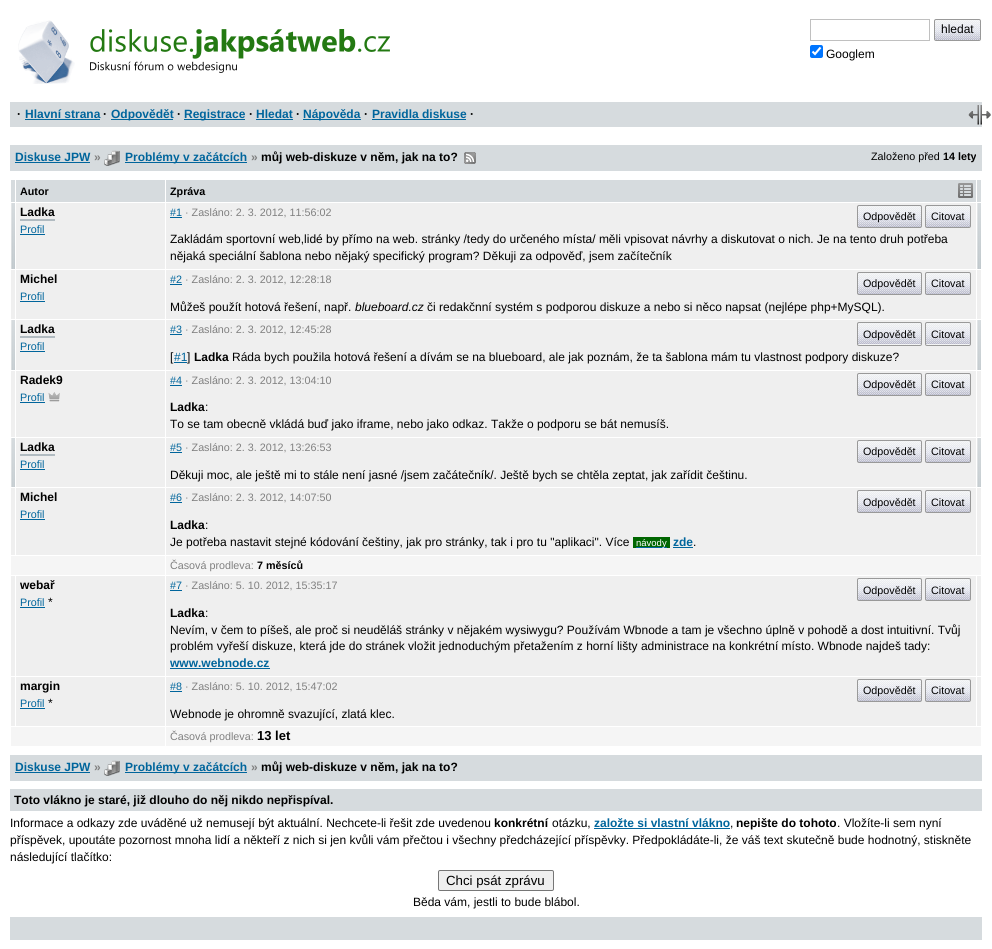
#include <cairo.h>
#include <math.h>
#include <stddef.h>


static void set_color(cairo_t *cr, unsigned color) {
    cairo_set_source_rgb(cr, (color >> 16) / 255.0, (color >> 8 & 255) / 255.0, (color & 255) / 255.0);
}

static void draw_text(cairo_t *cr, double x, double y, const char *s, const char *family, double size, int italic, int bold, unsigned color) {
    cairo_select_font_face(cr, family, italic ? CAIRO_FONT_SLANT_ITALIC : CAIRO_FONT_SLANT_NORMAL,
        bold ? CAIRO_FONT_WEIGHT_BOLD : CAIRO_FONT_WEIGHT_NORMAL);
    cairo_set_font_size(cr, size);
    set_color(cr, color);
    cairo_move_to(cr, x, y);
    cairo_show_text(cr, s);
}

static void fill_rect(cairo_t *cr, double x, double y, double w, double h, unsigned color) {
    set_color(cr, color);
    cairo_rectangle(cr, x, y, w, h);
    cairo_fill(cr);
}

static void rounded_rect(cairo_t *cr, double x, double y, double w, double h, double r) {
    cairo_new_sub_path(cr);
    cairo_arc(cr, x + w - r, y + h - r, r, 0, M_PI / 2);
    cairo_arc(cr, x + r, y + h - r, r, M_PI / 2, M_PI);
    cairo_arc(cr, x + r, y + r, r, M_PI, 1.5 * M_PI);
    cairo_arc(cr, x + w - r, y + r, r, 1.5 * M_PI, 2 * M_PI);
    cairo_close_path(cr);
}

static void draw_image(cairo_t *cr, const char *path, double x, double y, double w, double h) {
    cairo_surface_t *image = cairo_image_surface_create_from_png(path);
    cairo_save(cr);
    cairo_set_source_surface(cr, image, x, y);
    cairo_rectangle(cr, x, y, w, h);
    cairo_fill(cr);
    cairo_restore(cr);
    cairo_surface_destroy(image);
}

int main(void) {
    cairo_surface_t *surface = cairo_image_surface_create(CAIRO_FORMAT_RGB24, 992, 949);
    cairo_t *cr = cairo_create(surface);
    cairo_font_options_t *options = cairo_font_options_create();
    cairo_font_options_set_hint_metrics(options, CAIRO_HINT_METRICS_OFF);
    cairo_font_options_set_hint_style(options, CAIRO_HINT_STYLE_NONE);
    cairo_set_font_options(cr, options);
    cairo_set_miter_limit(cr, 4);
    set_color(cr, 0xFFFFFF);
    cairo_paint(cr);
    draw_image(cr, "assets/img1.png", 18, 20, 57, 64);
    draw_image(cr, "assets/img2.png", 90, 29, 300, 44);
    cairo_rectangle(cr, 810.5, 19.5, 119, 21);
    set_color(cr, 0xC0C0C0);
    cairo_set_line_width(cr, 1);
    cairo_stroke(cr);
    set_color(cr, 0xD6DBDE);
    rounded_rect(cr, 935, 20, 45, 20, 1);
    cairo_fill(cr);
    draw_image(cr, "assets/img3.png", 935, 20, 45, 20);
    rounded_rect(cr, 934.5, 19.5, 46, 21, 1.5);
    set_color(cr, 0x999999);
    cairo_stroke(cr);
    draw_text(cr, 941, 33, "hledat", "Liberation Sans", 12, 0, 0, 0x000000);
    set_color(cr, 0x0075FF);
    rounded_rect(cr, 810, 45, 13, 13, 2);
    cairo_fill(cr);
    cairo_new_path(cr);
    cairo_move_to(cr, 812.5, 51.5);
    cairo_line_to(cr, 815, 54);
    cairo_line_to(cr, 820.5, 47.5);
    set_color(cr, 0xFFFFFF);
    cairo_set_line_width(cr, 2.1);
    cairo_stroke(cr);
    draw_text(cr, 826, 58, "Googlem", "Liberation Sans", 12, 0, 0, 0x000000);
    fill_rect(cr, 10, 102, 972, 25, 0xD6DBDE);
    draw_text(cr, 17, 118, "·", "Liberation Sans", 12, 0, 1, 0x000000);
    draw_text(cr, 25, 118, "Hlavní strana", "Liberation Sans", 12, 0, 1, 0x00659C);
    fill_rect(cr, 25, 119, 75, 1, 0x00659C);
    draw_text(cr, 103, 118, "·", "Liberation Sans", 12, 0, 1, 0x000000);
    fill_rect(cr, 111, 119, 62, 1, 0x00659C);
    draw_text(cr, 111, 118, "Odpovědět", "Liberation Sans", 12, 0, 1, 0x00659C);
    draw_text(cr, 177, 118, "·", "Liberation Sans", 12, 0, 1, 0x000000);
    fill_rect(cr, 184, 119, 61, 1, 0x00659C);
    draw_text(cr, 184, 118, "Registrace", "Liberation Sans", 12, 0, 1, 0x00659C);
    draw_text(cr, 249, 118, "·", "Liberation Sans", 12, 0, 1, 0x000000);
    draw_text(cr, 256, 118, "Hledat", "Liberation Sans", 12, 0, 1, 0x00659C);
    fill_rect(cr, 256, 119, 37, 1, 0x00659C);
    draw_text(cr, 296, 118, "·", "Liberation Sans", 12, 0, 1, 0x000000);
    fill_rect(cr, 303, 119, 58, 1, 0x00659C);
    draw_text(cr, 303, 118, "Nápověda", "Liberation Sans", 12, 0, 1, 0x00659C);
    draw_text(cr, 364, 118, "·", "Liberation Sans", 12, 0, 1, 0x000000);
    draw_text(cr, 372, 118, "Pravidla diskuse", "Liberation Sans", 12, 0, 1, 0x00659C);
    fill_rect(cr, 372, 119, 94, 1, 0x00659C);
    draw_text(cr, 470, 118, "·", "Liberation Sans", 12, 0, 1, 0x000000);
    draw_image(cr, "assets/img4.png", 968, 105, 23, 20);
    fill_rect(cr, 10, 145, 972, 26, 0xD6DBDE);
    draw_text(cr, 15, 161, "Diskuse JPW", "Liberation Sans", 12, 0, 1, 0x00659C);
    fill_rect(cr, 15, 162, 75, 1, 0x00659C);
    draw_text(cr, 94, 161, "»", "Liberation Sans", 12, 0, 1, 0x808080);
    draw_image(cr, "assets/img5.png", 104, 150, 16, 16);
    fill_rect(cr, 125, 162, 122, 1, 0x00659C);
    draw_text(cr, 125, 161, "Problémy v začátcích", "Liberation Sans", 12, 0, 1, 0x00659C);
    draw_text(cr, 251, 161, "»", "Liberation Sans", 12, 0, 1, 0x808080);
    draw_text(cr, 261, 161, "můj web-diskuze v něm, jak na to?", "Liberation Sans", 12, 0, 1, 0x000000);
    draw_image(cr, "assets/img6.png", 464, 152, 12, 12);
    draw_text(cr, 871, 160, "Založeno před", "Liberation Sans", 10.75, 0, 0, 0x000000);
    draw_text(cr, 943, 160, "14 lety", "Liberation Sans", 10.75, 0, 1, 0x000000);
    fill_rect(cr, 11, 180, 4, 22, 0xD6DBDE);
    fill_rect(cr, 16, 180, 149, 22, 0xD6DBDE);
    draw_text(cr, 20, 195, "Autor", "Liberation Sans", 10.75, 0, 1, 0x000000);
    fill_rect(cr, 166, 180, 810, 22, 0xD6DBDE);
    draw_text(cr, 170, 195, "Zpráva", "Liberation Sans", 10.75, 0, 1, 0x000000);
    fill_rect(cr, 977, 180, 4, 22, 0xD6DBDE);
    fill_rect(cr, 16, 203, 960, 66, 0xEFEFEF);
    draw_image(cr, "assets/img7.png", 11, 203, 4, 66);
    draw_text(cr, 20, 216, "Ladka", "Liberation Sans", 12, 0, 1, 0x000000);
    fill_rect(cr, 20, 219, 35, 2, 0xB1BBC1);
    draw_text(cr, 20, 233, "Profil", "Liberation Sans", 10.75, 0, 0, 0x00659C);
    fill_rect(cr, 20, 234, 25, 1, 0x00659C);
    draw_text(cr, 170, 216, "#1", "Liberation Sans", 10.75, 0, 0, 0x00659C);
    fill_rect(cr, 170, 217, 12, 1, 0x00659C);
    draw_text(cr, 185, 216, "· Zasláno: 2. 3. 2012, 11:56:02", "Liberation Sans", 10.75, 0, 0, 0x808080);
    set_color(cr, 0xD6DBDE);
    rounded_rect(cr, 858, 206, 63, 21, 1);
    cairo_fill(cr);
    draw_image(cr, "assets/img8.png", 858, 206, 63, 21);
    rounded_rect(cr, 857.5, 205.5, 64, 22, 1.5);
    set_color(cr, 0x999999);
    cairo_set_line_width(cr, 1);
    cairo_stroke(cr);
    draw_text(cr, 863, 220, "Odpovědět", "Liberation Sans", 10.75, 0, 0, 0x000000);
    set_color(cr, 0xD6DBDE);
    rounded_rect(cr, 926, 206, 44, 21, 1);
    cairo_fill(cr);
    draw_image(cr, "assets/img9.png", 926, 206, 44, 21);
    rounded_rect(cr, 925.5, 205.5, 45, 22, 1.5);
    set_color(cr, 0x999999);
    cairo_stroke(cr);
    draw_text(cr, 931, 220, "Citovat", "Liberation Sans", 10.75, 0, 0, 0x000000);
    draw_text(cr, 170, 243, "Zakládám sportovní web,lidé by přímo na web. stránky /tedy do určeného místa/ měli vpisovat návrhy a diskutovat o nich. Je na tento druh potřeba", "Liberation Sans", 12, 0, 0, 0x000000);
    draw_text(cr, 170, 260, "nějaká speciální šablona nebo nějaký specifický program? Děkuji za odpověď, jsem začítečník", "Liberation Sans", 12, 0, 0, 0x000000);
    draw_image(cr, "assets/img7.png", 977, 203, 4, 66);
    fill_rect(cr, 11, 270, 970, 49, 0xEFEFEF);
    fill_rect(cr, 15, 269, 1, 51, 0xFFFFFF);
    draw_text(cr, 20, 283, "Michel", "Liberation Sans", 12, 0, 1, 0x000000);
    draw_text(cr, 20, 300, "Profil", "Liberation Sans", 10.75, 0, 0, 0x00659C);
    fill_rect(cr, 20, 301, 25, 1, 0x00659C);
    draw_text(cr, 170, 283, "#2", "Liberation Sans", 10.75, 0, 0, 0x00659C);
    fill_rect(cr, 170, 284, 12, 1, 0x00659C);
    draw_text(cr, 185, 283, "· Zasláno: 2. 3. 2012, 12:28:18", "Liberation Sans", 10.75, 0, 0, 0x808080);
    set_color(cr, 0xD6DBDE);
    rounded_rect(cr, 858, 273, 63, 21, 1);
    cairo_fill(cr);
    draw_image(cr, "assets/img8.png", 858, 273, 63, 21);
    rounded_rect(cr, 857.5, 272.5, 64, 22, 1.5);
    set_color(cr, 0x999999);
    cairo_stroke(cr);
    draw_text(cr, 863, 287, "Odpovědět", "Liberation Sans", 10.75, 0, 0, 0x000000);
    set_color(cr, 0xD6DBDE);
    rounded_rect(cr, 926, 273, 44, 21, 1);
    cairo_fill(cr);
    draw_image(cr, "assets/img9.png", 926, 273, 44, 21);
    rounded_rect(cr, 925.5, 272.5, 45, 22, 1.5);
    set_color(cr, 0x999999);
    cairo_stroke(cr);
    draw_text(cr, 931, 287, "Citovat", "Liberation Sans", 10.75, 0, 0, 0x000000);
    draw_text(cr, 170, 311, "Můžeš použít hotová řešení, např.", "Liberation Sans", 12, 0, 0, 0x000000);
    draw_text(cr, 355, 311, "blueboard.cz", "Liberation Sans", 12, 1, 0, 0x000000);
    draw_text(cr, 427, 311, "či redakčnní systém s podporou diskuze a nebo si něco napsat (nejlépe php+MySQL).", "Liberation Sans", 12, 0, 0, 0x000000);
    fill_rect(cr, 976, 269, 1, 51, 0xFFFFFF);
    fill_rect(cr, 16, 320, 960, 50, 0xEFEFEF);
    draw_image(cr, "assets/img10.png", 11, 320, 4, 50);
    draw_text(cr, 20, 333, "Ladka", "Liberation Sans", 12, 0, 1, 0x000000);
    fill_rect(cr, 20, 336, 35, 2, 0xB1BBC1);
    draw_text(cr, 20, 350, "Profil", "Liberation Sans", 10.75, 0, 0, 0x00659C);
    fill_rect(cr, 20, 351, 25, 1, 0x00659C);
    draw_text(cr, 170, 333, "#3", "Liberation Sans", 10.75, 0, 0, 0x00659C);
    fill_rect(cr, 170, 334, 12, 1, 0x00659C);
    draw_text(cr, 185, 333, "· Zasláno: 2. 3. 2012, 12:45:28", "Liberation Sans", 10.75, 0, 0, 0x808080);
    set_color(cr, 0xD6DBDE);
    rounded_rect(cr, 858, 323, 63, 22, 1);
    cairo_fill(cr);
    draw_image(cr, "assets/img11.png", 858, 323, 63, 22);
    rounded_rect(cr, 857.5, 322.5, 64, 23, 1.5);
    set_color(cr, 0x999999);
    cairo_stroke(cr);
    draw_text(cr, 863, 338, "Odpovědět", "Liberation Sans", 10.75, 0, 0, 0x000000);
    set_color(cr, 0xD6DBDE);
    rounded_rect(cr, 926, 323, 44, 22, 1);
    cairo_fill(cr);
    draw_image(cr, "assets/img12.png", 926, 323, 44, 22);
    rounded_rect(cr, 925.5, 322.5, 45, 23, 1.5);
    set_color(cr, 0x999999);
    cairo_stroke(cr);
    draw_text(cr, 931, 338, "Citovat", "Liberation Sans", 10.75, 0, 0, 0x000000);
    draw_text(cr, 170, 361, "[", "Liberation Sans", 12, 0, 0, 0x000000);
    draw_text(cr, 174, 361, "#1", "Liberation Sans", 12, 0, 0, 0x00659C);
    fill_rect(cr, 174, 362, 13, 1, 0x00659C);
    draw_text(cr, 187, 361, "]", "Liberation Sans", 12, 0, 0, 0x000000);
    draw_text(cr, 194, 361, "Ladka", "Liberation Sans", 12, 0, 1, 0x000000);
    draw_text(cr, 232, 361, "Ráda bych použila hotová řešení a dívám se na blueboard, ale jak poznám, že ta šablona mám tu vlastnost podpory diskuze?", "Liberation Sans", 12, 0, 0, 0x000000);
    draw_image(cr, "assets/img10.png", 977, 320, 4, 50);
    fill_rect(cr, 11, 371, 970, 66, 0xEFEFEF);
    fill_rect(cr, 15, 370, 1, 68, 0xFFFFFF);
    draw_text(cr, 20, 384, "Radek9", "Liberation Sans", 12, 0, 1, 0x000000);
    draw_text(cr, 20, 401, "Profil", "Liberation Sans", 10.75, 0, 0, 0x00659C);
    fill_rect(cr, 20, 402, 25, 1, 0x00659C);
    draw_image(cr, "assets/img13.png", 48, 392, 12, 10);
    draw_text(cr, 170, 384, "#4", "Liberation Sans", 10.75, 0, 0, 0x00659C);
    fill_rect(cr, 170, 385, 12, 1, 0x00659C);
    draw_text(cr, 185, 384, "· Zasláno: 2. 3. 2012, 13:04:10", "Liberation Sans", 10.75, 0, 0, 0x808080);
    set_color(cr, 0xD6DBDE);
    rounded_rect(cr, 858, 374, 63, 21, 1);
    cairo_fill(cr);
    draw_image(cr, "assets/img8.png", 858, 374, 63, 21);
    rounded_rect(cr, 857.5, 373.5, 64, 22, 1.5);
    set_color(cr, 0x999999);
    cairo_stroke(cr);
    draw_text(cr, 863, 388, "Odpovědět", "Liberation Sans", 10.75, 0, 0, 0x000000);
    set_color(cr, 0xD6DBDE);
    rounded_rect(cr, 926, 374, 44, 21, 1);
    cairo_fill(cr);
    draw_image(cr, "assets/img9.png", 926, 374, 44, 21);
    rounded_rect(cr, 925.5, 373.5, 45, 22, 1.5);
    set_color(cr, 0x999999);
    cairo_stroke(cr);
    draw_text(cr, 931, 388, "Citovat", "Liberation Sans", 10.75, 0, 0, 0x000000);
    draw_text(cr, 170, 411, "Ladka", "Liberation Sans", 12, 0, 1, 0x000000);
    draw_text(cr, 205, 411, ":", "Liberation Sans", 12, 0, 0, 0x000000);
    draw_text(cr, 170, 428, "To se tam obecně vkládá buď jako iframe, nebo jako odkaz. Takže o podporu se bát nemusíš.", "Liberation Sans", 12, 0, 0, 0x000000);
    fill_rect(cr, 976, 370, 1, 68, 0xFFFFFF);
    fill_rect(cr, 16, 438, 960, 49, 0xEFEFEF);
    draw_image(cr, "assets/img14.png", 11, 438, 4, 49);
    draw_text(cr, 20, 451, "Ladka", "Liberation Sans", 12, 0, 1, 0x000000);
    fill_rect(cr, 20, 454, 35, 2, 0xB1BBC1);
    draw_text(cr, 20, 468, "Profil", "Liberation Sans", 10.75, 0, 0, 0x00659C);
    fill_rect(cr, 20, 469, 25, 1, 0x00659C);
    draw_text(cr, 170, 451, "#5", "Liberation Sans", 10.75, 0, 0, 0x00659C);
    fill_rect(cr, 170, 452, 12, 1, 0x00659C);
    draw_text(cr, 185, 451, "· Zasláno: 2. 3. 2012, 13:26:53", "Liberation Sans", 10.75, 0, 0, 0x808080);
    set_color(cr, 0xD6DBDE);
    rounded_rect(cr, 858, 441, 63, 21, 1);
    cairo_fill(cr);
    draw_image(cr, "assets/img8.png", 858, 441, 63, 21);
    rounded_rect(cr, 857.5, 440.5, 64, 22, 1.5);
    set_color(cr, 0x999999);
    cairo_stroke(cr);
    draw_text(cr, 863, 455, "Odpovědět", "Liberation Sans", 10.75, 0, 0, 0x000000);
    set_color(cr, 0xD6DBDE);
    rounded_rect(cr, 926, 441, 44, 21, 1);
    cairo_fill(cr);
    draw_image(cr, "assets/img9.png", 926, 441, 44, 21);
    rounded_rect(cr, 925.5, 440.5, 45, 22, 1.5);
    set_color(cr, 0x999999);
    cairo_stroke(cr);
    draw_text(cr, 931, 455, "Citovat", "Liberation Sans", 10.75, 0, 0, 0x000000);
    draw_text(cr, 170, 479, "Děkuji moc, ale ještě mi to stále není jasné /jsem začátečník/. Ještě bych se chtěla zeptat, jak zařídit češtinu.", "Liberation Sans", 12, 0, 0, 0x000000);
    draw_image(cr, "assets/img14.png", 977, 438, 4, 49);
    fill_rect(cr, 11, 488, 970, 67, 0xEFEFEF);
    fill_rect(cr, 15, 487, 1, 69, 0xFFFFFF);
    draw_text(cr, 20, 501, "Michel", "Liberation Sans", 12, 0, 1, 0x000000);
    draw_text(cr, 20, 518, "Profil", "Liberation Sans", 10.75, 0, 0, 0x00659C);
    fill_rect(cr, 20, 519, 25, 1, 0x00659C);
    fill_rect(cr, 165, 202, 1, 354, 0xFFFFFF);
    draw_text(cr, 170, 501, "#6", "Liberation Sans", 10.75, 0, 0, 0x00659C);
    fill_rect(cr, 170, 502, 12, 1, 0x00659C);
    draw_text(cr, 185, 501, "· Zasláno: 2. 3. 2012, 14:07:50", "Liberation Sans", 10.75, 0, 0, 0x808080);
    set_color(cr, 0xD6DBDE);
    rounded_rect(cr, 858, 491, 63, 21, 1);
    cairo_fill(cr);
    draw_image(cr, "assets/img8.png", 858, 491, 63, 21);
    rounded_rect(cr, 857.5, 490.5, 64, 22, 1.5);
    set_color(cr, 0x999999);
    cairo_stroke(cr);
    draw_text(cr, 863, 506, "Odpovědět", "Liberation Sans", 10.75, 0, 0, 0x000000);
    set_color(cr, 0xD6DBDE);
    rounded_rect(cr, 926, 491, 44, 21, 1);
    cairo_fill(cr);
    draw_image(cr, "assets/img9.png", 926, 491, 44, 21);
    rounded_rect(cr, 925.5, 490.5, 45, 22, 1.5);
    set_color(cr, 0x999999);
    cairo_stroke(cr);
    draw_text(cr, 931, 506, "Citovat", "Liberation Sans", 10.75, 0, 0, 0x000000);
    draw_text(cr, 170, 529, "Ladka", "Liberation Sans", 12, 0, 1, 0x000000);
    draw_text(cr, 205, 529, ":", "Liberation Sans", 12, 0, 0, 0x000000);
    draw_text(cr, 170, 546, "Je potřeba nastavit stejné kódování češtiny, jak pro stránky, tak i pro tu \"aplikaci\". Více", "Liberation Sans", 12, 0, 0, 0x000000);
    fill_rect(cr, 633, 537, 37, 11, 0x006600);
    fill_rect(cr, 636, 547, 31, 1, 0x00659C);
    draw_text(cr, 636, 546, "návody", "Liberation Sans", 9.5, 0, 0, 0xFFFFFF);
    draw_text(cr, 673, 546, "zde", "Liberation Sans", 12, 0, 1, 0x00659C);
    fill_rect(cr, 673, 547, 20, 1, 0x00659C);
    draw_text(cr, 693, 546, ".", "Liberation Sans", 12, 0, 0, 0x000000);
    fill_rect(cr, 976, 487, 1, 69, 0xFFFFFF);
    fill_rect(cr, 11, 556, 154, 19, 0xF5F5F5);
    fill_rect(cr, 166, 556, 815, 19, 0xF5F5F5);
    draw_text(cr, 170, 569, "Časová prodleva:", "Liberation Sans", 10.75, 0, 0, 0x808080);
    draw_text(cr, 257, 569, "7 měsíců", "Liberation Sans", 10.75, 0, 1, 0x000000);
    fill_rect(cr, 11, 576, 970, 100, 0xEFEFEF);
    draw_text(cr, 20, 589, "webař", "Liberation Sans", 12, 0, 1, 0x000000);
    draw_text(cr, 20, 606, "Profil", "Liberation Sans", 10.75, 0, 0, 0x00659C);
    fill_rect(cr, 20, 607, 25, 1, 0x00659C);
    draw_text(cr, 48, 606, "*", "Liberation Sans", 12, 0, 0, 0x000000);
    draw_text(cr, 170, 589, "#7", "Liberation Sans", 10.75, 0, 0, 0x00659C);
    fill_rect(cr, 170, 590, 12, 1, 0x00659C);
    draw_text(cr, 185, 589, "· Zasláno: 5. 10. 2012, 15:35:17", "Liberation Sans", 10.75, 0, 0, 0x808080);
    set_color(cr, 0xD6DBDE);
    rounded_rect(cr, 858, 579, 63, 21, 1);
    cairo_fill(cr);
    draw_image(cr, "assets/img8.png", 858, 579, 63, 21);
    rounded_rect(cr, 857.5, 578.5, 64, 22, 1.5);
    set_color(cr, 0x999999);
    cairo_stroke(cr);
    draw_text(cr, 863, 594, "Odpovědět", "Liberation Sans", 10.75, 0, 0, 0x000000);
    set_color(cr, 0xD6DBDE);
    rounded_rect(cr, 926, 579, 44, 21, 1);
    cairo_fill(cr);
    draw_image(cr, "assets/img9.png", 926, 579, 44, 21);
    rounded_rect(cr, 925.5, 578.5, 45, 22, 1.5);
    set_color(cr, 0x999999);
    cairo_stroke(cr);
    draw_text(cr, 931, 594, "Citovat", "Liberation Sans", 10.75, 0, 0, 0x000000);
    draw_text(cr, 170, 617, "Ladka", "Liberation Sans", 12, 0, 1, 0x000000);
    draw_text(cr, 205, 617, ":", "Liberation Sans", 12, 0, 0, 0x000000);
    draw_text(cr, 170, 634, "Nevím, v čem to píšeš, ale proč si neuděláš stránky v nějakém wysiwygu? Používám Wbnode a tam je všechno úplně v pohodě a dost intuitivní. Tvůj", "Liberation Sans", 12, 0, 0, 0x000000);
    draw_text(cr, 170, 650, "problém vyřeší diskuze, která jde do stránek vložit jednoduchým přetažením z horní lišty administrace na konkrétní místo. Wbnode najdeš tady:", "Liberation Sans", 12, 0, 0, 0x000000);
    draw_text(cr, 170, 667, "www.webnode.cz", "Liberation Sans", 12, 0, 1, 0x00659C);
    fill_rect(cr, 170, 668, 100, 1, 0x00659C);
    fill_rect(cr, 11, 677, 970, 49, 0xEFEFEF);
    fill_rect(cr, 15, 575, 1, 152, 0xFFFFFF);
    draw_text(cr, 20, 690, "margin", "Liberation Sans", 12, 0, 1, 0x000000);
    draw_text(cr, 20, 707, "Profil", "Liberation Sans", 10.75, 0, 0, 0x00659C);
    fill_rect(cr, 20, 708, 25, 1, 0x00659C);
    draw_text(cr, 48, 707, "*", "Liberation Sans", 12, 0, 0, 0x000000);
    fill_rect(cr, 165, 575, 1, 152, 0xFFFFFF);
    draw_text(cr, 170, 690, "#8", "Liberation Sans", 10.75, 0, 0, 0x00659C);
    fill_rect(cr, 170, 691, 12, 1, 0x00659C);
    draw_text(cr, 185, 690, "· Zasláno: 5. 10. 2012, 15:47:02", "Liberation Sans", 10.75, 0, 0, 0x808080);
    set_color(cr, 0xD6DBDE);
    rounded_rect(cr, 858, 680, 63, 21, 1);
    cairo_fill(cr);
    draw_image(cr, "assets/img8.png", 858, 680, 63, 21);
    rounded_rect(cr, 857.5, 679.5, 64, 22, 1.5);
    set_color(cr, 0x999999);
    cairo_stroke(cr);
    draw_text(cr, 863, 694, "Odpovědět", "Liberation Sans", 10.75, 0, 0, 0x000000);
    set_color(cr, 0xD6DBDE);
    rounded_rect(cr, 926, 680, 44, 21, 1);
    cairo_fill(cr);
    draw_image(cr, "assets/img9.png", 926, 680, 44, 21);
    rounded_rect(cr, 925.5, 679.5, 45, 22, 1.5);
    set_color(cr, 0x999999);
    cairo_stroke(cr);
    draw_text(cr, 931, 694, "Citovat", "Liberation Sans", 10.75, 0, 0, 0x000000);
    draw_text(cr, 170, 718, "Webnode je ohromně svazující, zlatá klec.", "Liberation Sans", 12, 0, 0, 0x000000);
    fill_rect(cr, 976, 575, 1, 152, 0xFFFFFF);
    fill_rect(cr, 11, 727, 154, 19, 0xF5F5F5);
    fill_rect(cr, 166, 727, 815, 19, 0xF5F5F5);
    draw_text(cr, 170, 740, "Časová prodleva:", "Liberation Sans", 10.75, 0, 0, 0x808080);
    draw_text(cr, 257, 740, "13 let", "Liberation Sans", 13, 0, 1, 0x000000);
    draw_image(cr, "assets/img15.png", 958, 183, 15, 15);
    fill_rect(cr, 10, 755, 972, 26, 0xD6DBDE);
    draw_text(cr, 15, 771, "Diskuse JPW", "Liberation Sans", 12, 0, 1, 0x00659C);
    fill_rect(cr, 15, 772, 75, 1, 0x00659C);
    draw_text(cr, 94, 771, "»", "Liberation Sans", 12, 0, 1, 0x808080);
    draw_image(cr, "assets/img5.png", 104, 760, 16, 16);
    fill_rect(cr, 125, 772, 122, 1, 0x00659C);
    draw_text(cr, 125, 771, "Problémy v začátcích", "Liberation Sans", 12, 0, 1, 0x00659C);
    draw_text(cr, 251, 771, "»", "Liberation Sans", 12, 0, 1, 0x808080);
    draw_text(cr, 261, 771, "můj web-diskuze v něm, jak na to?", "Liberation Sans", 12, 0, 1, 0x000000);
    fill_rect(cr, 10, 789, 972, 22, 0xD6DBDE);
    draw_text(cr, 14, 804, "Toto vlákno je staré, již dlouho do něj nikdo nepřispíval.", "Liberation Sans", 12, 0, 1, 0x000000);
    draw_text(cr, 10, 827, "Informace a odkazy zde uváděné už nemusejí být aktuální. Nechcete-li řešit zde uvedenou", "Liberation Sans", 12, 0, 0, 0x000000);
    draw_text(cr, 494, 827, "konkrétní", "Liberation Sans", 12, 0, 1, 0x000000);
    draw_text(cr, 552, 827, "otázku,", "Liberation Sans", 12, 0, 0, 0x000000);
    draw_text(cr, 594, 827, "založte si vlastní vlákno", "Liberation Sans", 12, 0, 1, 0x00659C);
    fill_rect(cr, 594, 828, 136, 1, 0x00659C);
    draw_text(cr, 730, 827, ",", "Liberation Sans", 12, 0, 0, 0x000000);
    draw_text(cr, 736, 827, "nepište do tohoto", "Liberation Sans", 12, 0, 1, 0x000000);
    draw_text(cr, 837, 827, ". Vložíte-li sem nyní", "Liberation Sans", 12, 0, 0, 0x000000);
    draw_text(cr, 10, 844, "příspěvek, upoutáte pozornost mnoha lidí a někteří z nich si jen kvůli vám přečtou i všechny předcházející příspěvky. Předpokládáte-li, že váš text skutečně bude hodnotný, stiskněte", "Liberation Sans", 12, 0, 0, 0x000000);
    draw_text(cr, 10, 861, "následující tlačítko:", "Liberation Sans", 12, 0, 0, 0x000000);
    set_color(cr, 0xEFEFEF);
    rounded_rect(cr, 438.5, 870.5, 115, 20, 1.5);
    cairo_fill_preserve(cr);
    set_color(cr, 0x767676);
    cairo_stroke(cr);
    draw_text(cr, 446, 885, "Chci psát zprávu", "Liberation Sans", 13.25, 0, 0, 0x000000);
    draw_text(cr, 413, 906, "Běda vám, jestli to bude blábol.", "Liberation Sans", 12, 0, 0, 0x000000);
    fill_rect(cr, 10, 917, 972, 23, 0xD6DBDE);
    cairo_surface_write_to_png(surface, "output.png");
    cairo_font_options_destroy(options);
    cairo_destroy(cr);
    cairo_surface_destroy(surface);
    return 0;
}
